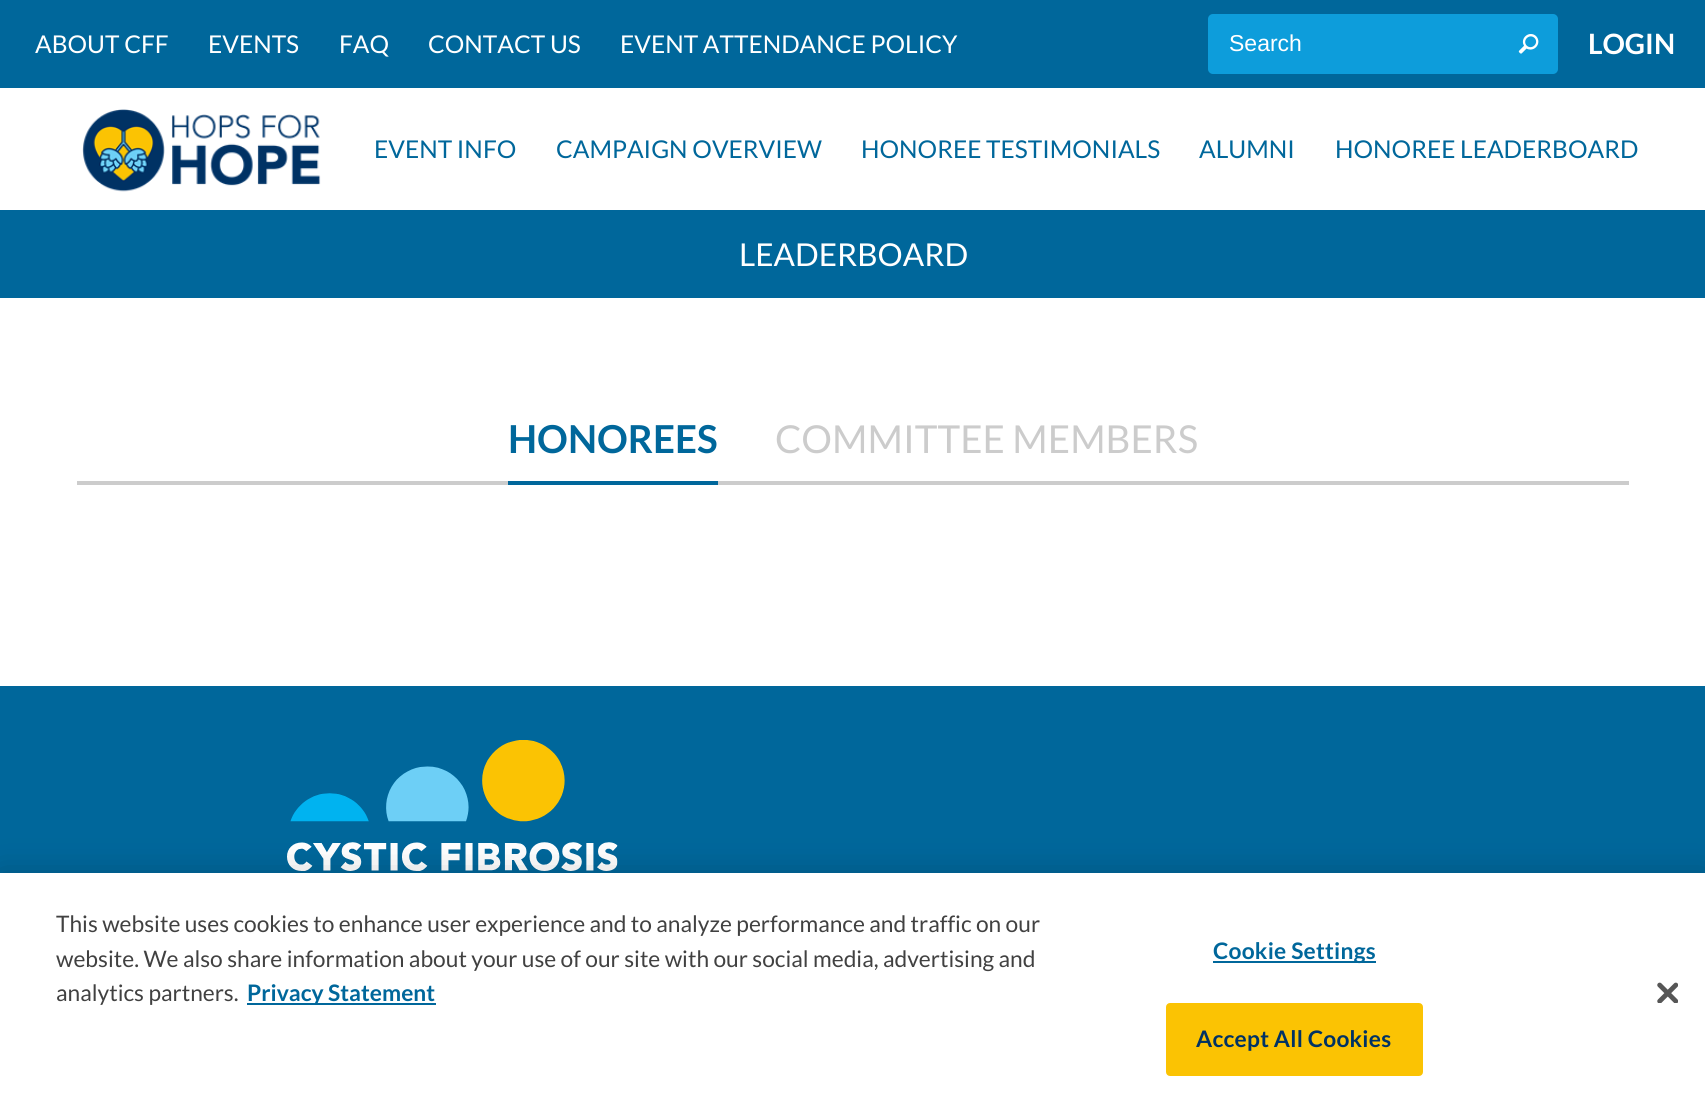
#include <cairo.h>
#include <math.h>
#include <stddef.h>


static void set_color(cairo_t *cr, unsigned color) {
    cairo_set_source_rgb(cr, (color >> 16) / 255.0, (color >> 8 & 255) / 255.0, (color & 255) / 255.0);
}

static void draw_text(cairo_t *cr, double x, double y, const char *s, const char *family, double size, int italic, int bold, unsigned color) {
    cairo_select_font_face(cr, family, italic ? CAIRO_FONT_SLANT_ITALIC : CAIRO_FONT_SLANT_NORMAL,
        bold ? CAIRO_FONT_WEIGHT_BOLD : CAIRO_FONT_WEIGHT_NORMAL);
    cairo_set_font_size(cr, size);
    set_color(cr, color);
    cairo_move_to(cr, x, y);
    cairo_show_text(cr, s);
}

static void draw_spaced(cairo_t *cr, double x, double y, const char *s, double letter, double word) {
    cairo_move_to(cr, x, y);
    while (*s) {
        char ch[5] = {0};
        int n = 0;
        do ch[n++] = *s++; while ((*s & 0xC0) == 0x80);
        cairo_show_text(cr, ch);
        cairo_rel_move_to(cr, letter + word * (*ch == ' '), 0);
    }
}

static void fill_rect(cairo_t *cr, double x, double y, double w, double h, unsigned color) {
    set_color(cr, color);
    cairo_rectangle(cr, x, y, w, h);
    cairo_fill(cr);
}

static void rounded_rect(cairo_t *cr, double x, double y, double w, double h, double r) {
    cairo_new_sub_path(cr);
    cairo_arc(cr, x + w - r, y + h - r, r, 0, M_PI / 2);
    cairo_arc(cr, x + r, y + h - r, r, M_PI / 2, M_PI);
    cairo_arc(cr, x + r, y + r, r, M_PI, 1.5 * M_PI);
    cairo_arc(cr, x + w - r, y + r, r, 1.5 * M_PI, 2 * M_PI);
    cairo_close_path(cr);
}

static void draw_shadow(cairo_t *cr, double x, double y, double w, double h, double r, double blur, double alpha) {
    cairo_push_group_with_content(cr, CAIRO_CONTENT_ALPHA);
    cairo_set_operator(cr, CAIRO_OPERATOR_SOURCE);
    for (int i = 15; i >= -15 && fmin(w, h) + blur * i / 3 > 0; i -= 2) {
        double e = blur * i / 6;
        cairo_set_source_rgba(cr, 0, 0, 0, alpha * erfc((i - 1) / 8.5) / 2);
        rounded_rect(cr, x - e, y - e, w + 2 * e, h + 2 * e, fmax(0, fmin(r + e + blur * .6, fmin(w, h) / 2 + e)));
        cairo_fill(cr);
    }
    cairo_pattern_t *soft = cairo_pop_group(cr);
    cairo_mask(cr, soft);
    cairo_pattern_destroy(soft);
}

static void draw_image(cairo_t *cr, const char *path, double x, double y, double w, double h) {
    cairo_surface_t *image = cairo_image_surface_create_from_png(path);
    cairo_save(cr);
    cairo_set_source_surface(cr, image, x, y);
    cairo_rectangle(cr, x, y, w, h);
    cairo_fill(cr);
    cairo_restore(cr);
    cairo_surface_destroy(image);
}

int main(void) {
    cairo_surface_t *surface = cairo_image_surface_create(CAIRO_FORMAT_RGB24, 1705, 1111);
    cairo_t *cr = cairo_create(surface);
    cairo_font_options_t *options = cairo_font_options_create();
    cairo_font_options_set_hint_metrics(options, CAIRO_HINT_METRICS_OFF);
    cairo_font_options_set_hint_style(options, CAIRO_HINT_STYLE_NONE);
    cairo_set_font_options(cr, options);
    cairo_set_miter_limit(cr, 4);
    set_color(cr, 0xFFFFFF);
    cairo_paint(cr);
    fill_rect(cr, 0, 0, 1705, 88, 0x00679B);
    draw_text(cr, 35, 53, "ABOUT CFF", "Lato", 24.5, 0, 0, 0xFFFFFF);
    draw_text(cr, 208, 53, "EVENTS", "Lato", 24.5, 0, 0, 0xFFFFFF);
    draw_text(cr, 339, 53, "FAQ", "Lato", 24.5, 0, 0, 0xFFFFFF);
    draw_text(cr, 428, 53, "CONTACT US", "Lato", 24.5, 0, 0, 0xFFFFFF);
    draw_text(cr, 620, 53, "EVENT ATTENDANCE POLICY", "Lato", 24.5, 0, 0, 0xFFFFFF);
    set_color(cr, 0x0D9DDB);
    rounded_rect(cr, 1208, 14, 350, 60, 5);
    cairo_fill(cr);
    draw_text(cr, 1229, 51, "Search", "Liberation Sans", 23, 0, 0, 0xFFFFFF);
    draw_image(cr, "assets/img1.png", 1518, 34, 21, 20);
    draw_text(cr, 1588, 54, "LOGIN", "Lato", 28, 0, 1, 0xFFFFFF);
    draw_image(cr, "assets/img2.png", 82, 109, 239, 83);
    draw_text(cr, 374, 158, "EVENT INFO", "Lato", 24.5, 0, 0, 0x00679B);
    draw_text(cr, 556, 158, "CAMPAIGN OVERVIEW", "Lato", 24.5, 0, 0, 0x00679B);
    draw_text(cr, 861, 158, "HONOREE TESTIMONIALS", "Lato", 24.5, 0, 0, 0x00679B);
    draw_text(cr, 1199, 158, "ALUMNI", "Lato", 24.5, 0, 0, 0x00679B);
    draw_text(cr, 1335, 158, "HONOREE LEADERBOARD", "Lato", 24.5, 0, 0, 0x00679B);
    fill_rect(cr, 0, 210, 1705, 88, 0x00679B);
    draw_text(cr, 739, 266, "LEADERBOARD", "Lato", 31.5, 0, 0, 0xFFFFFF);
    fill_rect(cr, 77, 481, 1552, 4, 0xCCCCCC);
    draw_text(cr, 508, 453, "HONOREES", "Lato", 38.5, 0, 1, 0x00679B);
    fill_rect(cr, 508, 481, 210, 4, 0x00679B);
    draw_text(cr, 775, 453, "COMMITTEE MEMBERS", "Lato", 38.5, 0, 0, 0xCCCCCC);
    fill_rect(cr, 0, 686, 1705, 187, 0x00679B);
    draw_image(cr, "assets/img3.png", 287, 740, 331, 131);
    set_color(cr, 0x000000);
    draw_shadow(cr, 0, 873, 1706, 238, 0, 16, 0.2);
    fill_rect(cr, 0, 873, 1705, 238, 0xFFFFFF);
    draw_text(cr, 56, 932, "This website uses cookies to enhance user experience and to analyze performance and traffic on our", "Lato", 22.75, 0, 0, 0x414141);
    draw_text(cr, 56, 967, "website. We also share information about your use of our site with our social media, advertising and", "Lato", 22.75, 0, 0, 0x414141);
    draw_text(cr, 56, 1001, "analytics partners.", "Lato", 22.75, 0, 0, 0x414141);
    fill_rect(cr, 247, 1003, 189, 2, 0x00679B);
    draw_text(cr, 247, 1001, "Privacy Statement", "Lato", 22.75, 0, 1, 0x00679B);
    fill_rect(cr, 1213, 961, 163, 2, 0x00679B);
    draw_spaced(cr, 1213, 959, "Cookie Settings", 0.25, 0);
    set_color(cr, 0xFBC303);
    rounded_rect(cr, 1167, 1004, 255, 71, 3);
    cairo_fill_preserve(cr);
    cairo_stroke(cr);
    set_color(cr, 0x003264);
    draw_spaced(cr, 1196, 1047, "Accept All Cookies", 0.25, 0);
    draw_image(cr, "assets/img4.png", 1657, 982, 21, 21);
    cairo_surface_write_to_png(surface, "output.png");
    cairo_font_options_destroy(options);
    cairo_destroy(cr);
    cairo_surface_destroy(surface);
    return 0;
}
